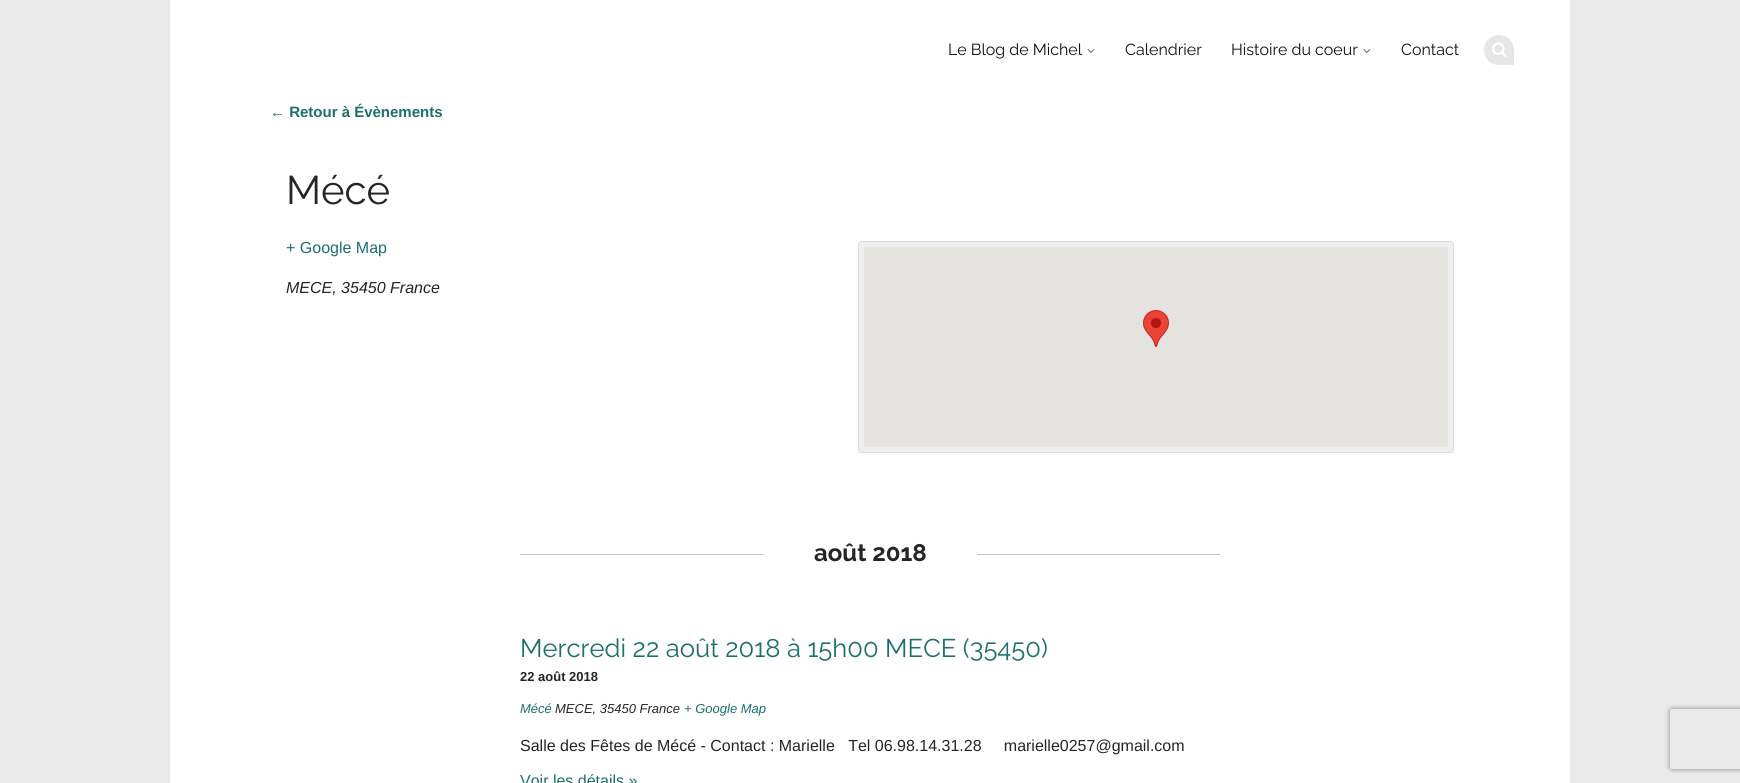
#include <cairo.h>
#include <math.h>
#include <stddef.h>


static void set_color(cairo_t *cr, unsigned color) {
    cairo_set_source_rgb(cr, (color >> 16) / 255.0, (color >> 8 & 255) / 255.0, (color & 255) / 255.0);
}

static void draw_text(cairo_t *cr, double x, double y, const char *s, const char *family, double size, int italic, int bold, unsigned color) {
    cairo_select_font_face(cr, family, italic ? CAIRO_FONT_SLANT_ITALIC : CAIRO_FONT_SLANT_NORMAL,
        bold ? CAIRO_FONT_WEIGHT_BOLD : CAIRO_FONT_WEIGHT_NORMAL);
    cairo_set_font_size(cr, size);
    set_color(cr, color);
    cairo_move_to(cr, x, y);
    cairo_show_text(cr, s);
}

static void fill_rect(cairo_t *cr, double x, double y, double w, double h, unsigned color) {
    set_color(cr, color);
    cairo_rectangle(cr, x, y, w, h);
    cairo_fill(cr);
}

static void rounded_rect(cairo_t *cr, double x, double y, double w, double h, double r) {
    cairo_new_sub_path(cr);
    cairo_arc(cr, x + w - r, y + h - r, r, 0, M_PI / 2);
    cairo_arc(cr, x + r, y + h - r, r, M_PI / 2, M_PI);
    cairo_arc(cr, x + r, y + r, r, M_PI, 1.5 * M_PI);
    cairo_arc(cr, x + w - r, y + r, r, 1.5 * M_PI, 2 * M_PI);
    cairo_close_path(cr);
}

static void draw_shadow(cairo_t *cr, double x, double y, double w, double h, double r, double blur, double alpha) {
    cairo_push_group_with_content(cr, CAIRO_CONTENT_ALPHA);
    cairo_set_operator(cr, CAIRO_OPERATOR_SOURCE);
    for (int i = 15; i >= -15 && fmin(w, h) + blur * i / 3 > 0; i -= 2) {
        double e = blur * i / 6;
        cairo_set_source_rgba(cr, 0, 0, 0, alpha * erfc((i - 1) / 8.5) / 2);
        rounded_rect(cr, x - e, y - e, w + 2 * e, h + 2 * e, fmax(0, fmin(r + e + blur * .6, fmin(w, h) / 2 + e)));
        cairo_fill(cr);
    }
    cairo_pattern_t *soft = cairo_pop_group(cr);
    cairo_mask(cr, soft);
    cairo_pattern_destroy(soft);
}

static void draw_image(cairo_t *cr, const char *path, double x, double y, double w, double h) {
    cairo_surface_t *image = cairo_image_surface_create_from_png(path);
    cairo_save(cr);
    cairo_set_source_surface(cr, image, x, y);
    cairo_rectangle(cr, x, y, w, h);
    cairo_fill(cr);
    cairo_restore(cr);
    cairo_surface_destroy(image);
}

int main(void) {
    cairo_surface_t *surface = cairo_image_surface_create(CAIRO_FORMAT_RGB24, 1740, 783);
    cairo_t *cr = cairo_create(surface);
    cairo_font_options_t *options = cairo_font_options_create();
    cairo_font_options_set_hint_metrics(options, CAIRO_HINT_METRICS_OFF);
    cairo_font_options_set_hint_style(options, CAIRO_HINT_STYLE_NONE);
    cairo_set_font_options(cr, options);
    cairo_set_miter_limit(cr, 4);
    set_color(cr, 0xEAEAEA);
    cairo_paint(cr);
    fill_rect(cr, 170, 0, 1400, 783, 0xFFFFFF);
    draw_text(cr, 948, 55, "Le Blog de Michel", "Raleway", 16, 0, 0, 0x111111);
    draw_image(cr, "assets/img1.png", 1087, 49, 8, 4);
    draw_text(cr, 1125, 55, "Calendrier", "Raleway", 16, 0, 0, 0x111111);
    draw_text(cr, 1231, 55, "Histoire du coeur", "Raleway", 16, 0, 0, 0x111111);
    draw_image(cr, "assets/img1.png", 1363, 49, 8, 4);
    draw_text(cr, 1401, 55, "Contact", "Raleway", 16, 0, 0, 0x111111);
    set_color(cr, 0xE6E6E6);
    cairo_new_path(cr);
    cairo_move_to(cr, 1499, 35);
    cairo_curve_to(cr, 1507.5, 35, 1514, 41.5, 1514, 50);
    cairo_line_to(cr, 1514, 63.5);
    cairo_curve_to(cr, 1514, 64.5, 1513.5, 65, 1512.5, 65);
    cairo_line_to(cr, 1499, 65);
    cairo_curve_to(cr, 1490.5, 65, 1484, 58.5, 1484, 50);
    cairo_curve_to(cr, 1484, 41.5, 1490.5, 35, 1499, 35);
    cairo_close_path(cr);
    cairo_fill(cr);
    draw_image(cr, "assets/img2.png", 1492, 42, 15, 16);
    draw_text(cr, 270, 117, "← Retour à Évènements", "Liberation Sans", 15, 0, 1, 0x1B6F6C);
    draw_text(cr, 286, 204, "Mécé", "Raleway", 40, 0, 0, 0x232527);
    draw_text(cr, 286, 253, "+ Google Map", "Liberation Sans", 16, 0, 0, 0x1B6F6C);
    draw_text(cr, 286, 293, "MECE, 35450 France", "Liberation Sans", 16, 1, 0, 0x232527);
    set_color(cr, 0xEEEEEE);
    rounded_rect(cr, 858.5, 241.5, 595, 211, 2.5);
    cairo_fill_preserve(cr);
    set_color(cr, 0xDDDDDD);
    cairo_set_line_width(cr, 1);
    cairo_stroke(cr);
    fill_rect(cr, 864, 247, 584, 200, 0xE5E3DF);
    draw_image(cr, "assets/img3.png", 1143, 310, 26, 37);
    fill_rect(cr, 520, 554, 700, 1, 0xC2C2C2);
    fill_rect(cr, 763, 554, 214, 1, 0xFFFFFF);
    draw_text(cr, 814, 561, "août 2018", "Raleway", 24, 0, 1, 0x232527);
    draw_text(cr, 520, 657, "Mercredi 22 août 2018 à 15h00 MECE (35450)", "Raleway", 25.6, 0, 0, 0x1B6F6C);
    draw_text(cr, 520, 681, "22 août 2018", "Liberation Sans", 13, 0, 1, 0x232527);
    draw_text(cr, 520, 713, "Mécé", "Liberation Sans", 13, 1, 0, 0x1B6F6C);
    draw_text(cr, 555, 713, "MECE, 35450 France", "Liberation Sans", 13, 1, 0, 0x232527);
    draw_text(cr, 684, 713, "+ Google Map", "Liberation Sans", 13, 1, 0, 0x1B6F6C);
    draw_text(cr, 520, 751, "Salle des Fêtes de Mécé - Contact : Marielle   Tel 06.98.14.31.28     marielle0257@gmail.com", "Liberation Sans", 16, 0, 0, 0x232527);
    draw_text(cr, 520, 786, "Voir les détails »", "Liberation Sans", 16, 0, 0, 0x1B6F6C);
    cairo_save(cr);
    cairo_set_fill_rule(cr, CAIRO_FILL_RULE_EVEN_ODD);
    cairo_new_path(cr);
    cairo_move_to(cr, 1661, 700);
    cairo_line_to(cr, 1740, 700);
    cairo_line_to(cr, 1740, 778);
    cairo_line_to(cr, 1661, 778);
    cairo_close_path(cr);
    cairo_move_to(cr, 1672, 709);
    cairo_line_to(cr, 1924, 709);
    cairo_curve_to(cr, 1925, 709, 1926, 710, 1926, 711);
    cairo_line_to(cr, 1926, 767);
    cairo_curve_to(cr, 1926, 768, 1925, 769, 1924, 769);
    cairo_line_to(cr, 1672, 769);
    cairo_curve_to(cr, 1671, 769, 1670, 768, 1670, 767);
    cairo_line_to(cr, 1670, 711);
    cairo_curve_to(cr, 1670, 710, 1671, 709, 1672, 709);
    cairo_close_path(cr);
    cairo_clip(cr);
    set_color(cr, 0x808080);
    draw_shadow(cr, 1670, 709, 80, 60, 2, 2.5, 1);
    cairo_restore(cr);
    cairo_surface_write_to_png(surface, "output.png");
    cairo_font_options_destroy(options);
    cairo_destroy(cr);
    cairo_surface_destroy(surface);
    return 0;
}
